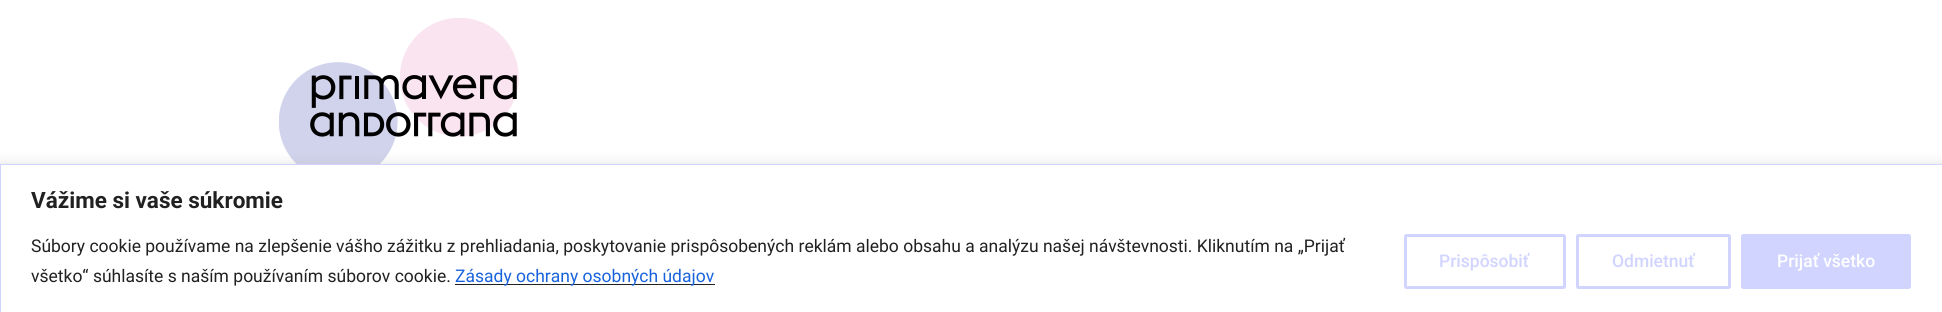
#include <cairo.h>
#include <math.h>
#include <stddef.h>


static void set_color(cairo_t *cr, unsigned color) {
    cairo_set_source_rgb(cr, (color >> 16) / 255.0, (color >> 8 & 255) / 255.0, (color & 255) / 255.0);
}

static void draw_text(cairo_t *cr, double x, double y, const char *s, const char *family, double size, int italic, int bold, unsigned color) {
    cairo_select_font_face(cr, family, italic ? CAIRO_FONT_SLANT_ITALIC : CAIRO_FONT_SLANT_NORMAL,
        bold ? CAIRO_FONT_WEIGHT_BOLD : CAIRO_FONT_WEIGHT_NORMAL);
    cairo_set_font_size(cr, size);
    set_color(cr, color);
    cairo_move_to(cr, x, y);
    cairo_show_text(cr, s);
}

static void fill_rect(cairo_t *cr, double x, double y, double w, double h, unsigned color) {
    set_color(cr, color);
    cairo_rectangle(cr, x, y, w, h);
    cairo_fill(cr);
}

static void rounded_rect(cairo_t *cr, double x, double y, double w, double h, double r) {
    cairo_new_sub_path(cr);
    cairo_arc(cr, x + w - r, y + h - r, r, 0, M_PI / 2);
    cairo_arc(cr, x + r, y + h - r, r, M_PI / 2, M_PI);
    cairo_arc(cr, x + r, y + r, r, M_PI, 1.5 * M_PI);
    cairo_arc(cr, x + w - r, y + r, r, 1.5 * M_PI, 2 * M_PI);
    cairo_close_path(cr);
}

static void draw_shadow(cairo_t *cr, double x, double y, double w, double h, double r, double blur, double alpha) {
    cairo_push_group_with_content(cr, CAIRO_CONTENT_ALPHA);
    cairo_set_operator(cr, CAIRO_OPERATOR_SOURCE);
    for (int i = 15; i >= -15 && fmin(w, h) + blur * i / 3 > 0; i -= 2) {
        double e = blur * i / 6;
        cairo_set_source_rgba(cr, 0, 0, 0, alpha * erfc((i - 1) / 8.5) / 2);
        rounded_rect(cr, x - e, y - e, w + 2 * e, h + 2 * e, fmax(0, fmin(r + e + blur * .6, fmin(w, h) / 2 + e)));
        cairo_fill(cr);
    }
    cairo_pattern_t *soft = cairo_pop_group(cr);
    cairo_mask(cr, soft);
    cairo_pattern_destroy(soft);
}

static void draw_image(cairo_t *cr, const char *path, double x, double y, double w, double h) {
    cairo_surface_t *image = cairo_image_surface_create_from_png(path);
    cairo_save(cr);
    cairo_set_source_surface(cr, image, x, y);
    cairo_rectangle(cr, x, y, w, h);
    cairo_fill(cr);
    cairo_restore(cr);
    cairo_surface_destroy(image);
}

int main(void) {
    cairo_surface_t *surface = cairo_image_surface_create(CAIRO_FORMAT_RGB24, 1942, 312);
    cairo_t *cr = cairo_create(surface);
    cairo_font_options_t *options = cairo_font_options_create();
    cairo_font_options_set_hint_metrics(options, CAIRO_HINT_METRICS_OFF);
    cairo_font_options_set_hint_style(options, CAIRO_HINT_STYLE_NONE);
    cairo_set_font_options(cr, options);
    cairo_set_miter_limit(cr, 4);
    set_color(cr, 0xFFFFFF);
    cairo_paint(cr);
    draw_image(cr, "assets/img1.png", 279, 18, 240, 146);
    set_color(cr, 0xACABAB);
    draw_shadow(cr, 0, 163, 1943, 148, 0, 6, 0.3);
    set_color(cr, 0xFFFFFF);
    cairo_rectangle(cr, 0.5, 164.5, 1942, 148);
    cairo_fill_preserve(cr);
    set_color(cr, 0xD0D4FF);
    cairo_set_line_width(cr, 1);
    cairo_stroke(cr);
    draw_text(cr, 31, 208, "Vážime si vaše súkromie", "Roboto", 22.5, 0, 1, 0x212121);
    draw_text(cr, 31, 252, "Súbory cookie používame na zlepšenie vášho zážitku z prehliadania, poskytovanie prispôsobených reklám alebo obsahu a analýzu našej návštevnosti. Kliknutím na „Prijať", "Roboto", 17.5, 0, 0, 0x212121);
    draw_text(cr, 31, 282, "všetko“ súhlasíte s naším používaním súborov cookie.", "Roboto", 17.5, 0, 0, 0x212121);
    fill_rect(cr, 455, 284, 260, 1, 0x212121);
    draw_text(cr, 455, 282, "Zásady ochrany osobných údajov", "Roboto", 17.5, 0, 0, 0x1863DC);
    rounded_rect(cr, 1405.5, 235.5, 159, 52, 1);
    set_color(cr, 0xD0D4FF);
    cairo_set_line_width(cr, 3);
    cairo_stroke(cr);
    draw_text(cr, 1439, 267, "Prispôsobiť", "Roboto Medium", 17.5, 0, 0, 0xD0D4FF);
    rounded_rect(cr, 1577.5, 235.5, 152, 52, 1);
    cairo_stroke(cr);
    draw_text(cr, 1612, 267, "Odmietnuť", "Roboto Medium", 17.5, 0, 0, 0xD0D4FF);
    rounded_rect(cr, 1742.5, 235.5, 167, 52, 1);
    cairo_fill_preserve(cr);
    cairo_stroke(cr);
    draw_text(cr, 1777, 267, "Prijať všetko", "Roboto Medium", 17.5, 0, 0, 0xFFFFFF);
    cairo_surface_write_to_png(surface, "output.png");
    cairo_font_options_destroy(options);
    cairo_destroy(cr);
    cairo_surface_destroy(surface);
    return 0;
}
